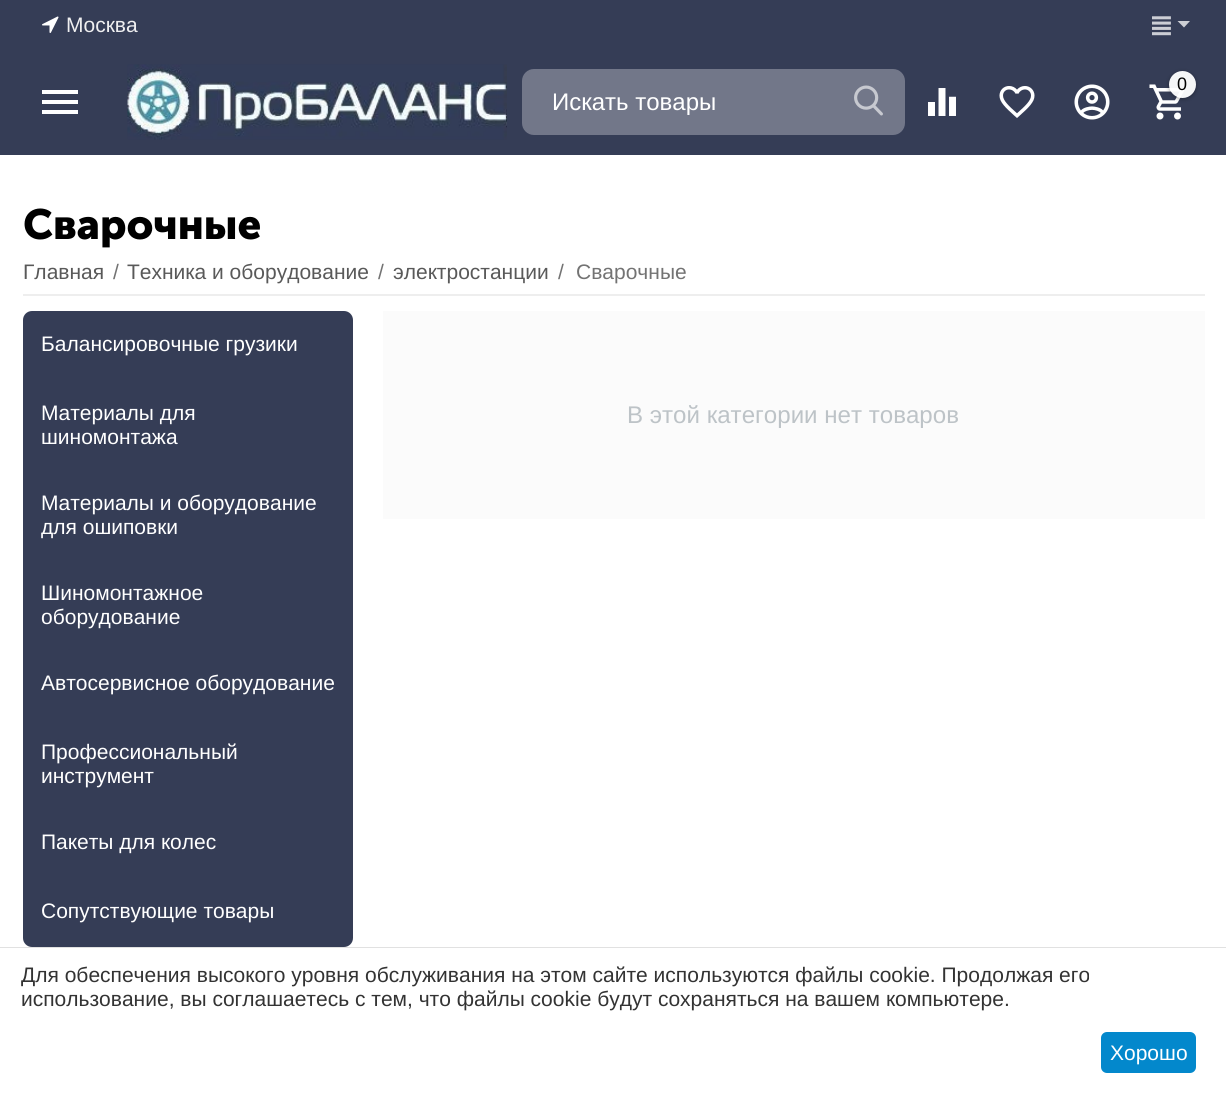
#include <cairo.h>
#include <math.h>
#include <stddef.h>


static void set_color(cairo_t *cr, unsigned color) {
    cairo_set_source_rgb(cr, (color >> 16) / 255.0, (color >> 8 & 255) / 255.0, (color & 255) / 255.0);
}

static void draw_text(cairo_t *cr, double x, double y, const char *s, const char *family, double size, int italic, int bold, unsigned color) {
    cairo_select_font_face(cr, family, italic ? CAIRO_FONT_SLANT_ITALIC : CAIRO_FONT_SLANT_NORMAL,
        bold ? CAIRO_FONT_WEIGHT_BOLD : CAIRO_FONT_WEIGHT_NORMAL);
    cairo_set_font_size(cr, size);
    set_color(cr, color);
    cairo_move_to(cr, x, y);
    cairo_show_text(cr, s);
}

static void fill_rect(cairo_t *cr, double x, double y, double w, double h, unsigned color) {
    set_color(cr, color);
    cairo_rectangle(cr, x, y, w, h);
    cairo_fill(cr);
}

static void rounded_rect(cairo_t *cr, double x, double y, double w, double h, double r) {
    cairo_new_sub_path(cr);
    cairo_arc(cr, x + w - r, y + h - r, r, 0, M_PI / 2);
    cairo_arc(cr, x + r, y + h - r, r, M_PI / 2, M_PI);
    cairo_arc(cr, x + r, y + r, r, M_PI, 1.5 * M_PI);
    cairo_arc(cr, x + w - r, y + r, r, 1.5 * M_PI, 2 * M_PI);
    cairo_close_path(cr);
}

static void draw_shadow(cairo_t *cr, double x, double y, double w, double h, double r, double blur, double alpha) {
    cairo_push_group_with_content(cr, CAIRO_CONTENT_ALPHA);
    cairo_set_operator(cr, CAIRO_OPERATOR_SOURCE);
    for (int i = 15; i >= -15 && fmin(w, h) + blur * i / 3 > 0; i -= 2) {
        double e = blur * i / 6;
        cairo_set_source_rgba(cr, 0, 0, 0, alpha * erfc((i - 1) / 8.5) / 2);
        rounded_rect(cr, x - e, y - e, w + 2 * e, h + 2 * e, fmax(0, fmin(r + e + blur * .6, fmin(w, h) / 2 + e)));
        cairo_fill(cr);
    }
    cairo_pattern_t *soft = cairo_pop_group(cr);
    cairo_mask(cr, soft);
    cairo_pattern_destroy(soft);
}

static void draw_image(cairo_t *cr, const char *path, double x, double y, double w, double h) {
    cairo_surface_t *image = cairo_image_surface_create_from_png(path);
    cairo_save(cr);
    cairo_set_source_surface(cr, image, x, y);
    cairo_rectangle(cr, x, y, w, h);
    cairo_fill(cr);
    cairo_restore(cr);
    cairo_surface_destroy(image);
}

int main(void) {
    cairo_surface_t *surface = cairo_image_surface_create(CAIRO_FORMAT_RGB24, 1226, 1093);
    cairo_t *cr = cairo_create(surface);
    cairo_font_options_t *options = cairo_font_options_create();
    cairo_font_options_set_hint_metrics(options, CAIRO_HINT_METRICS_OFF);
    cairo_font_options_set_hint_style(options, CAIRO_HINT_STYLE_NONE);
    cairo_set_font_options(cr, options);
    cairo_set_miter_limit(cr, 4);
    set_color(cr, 0xFFFFFF);
    cairo_paint(cr);
    fill_rect(cr, 0, 0, 1226, 155, 0x353D56);
    draw_image(cr, "assets/img1.png", 42, 16, 17, 17);
    draw_text(cr, 66, 32, "Москва", "Liberation Sans", 21, 0, 0, 0xEFEFF0);
    draw_image(cr, "assets/img2.png", 1152, 16, 19, 20);
    set_color(cr, 0xCDCFD5);
    cairo_new_path(cr);
    cairo_move_to(cr, 1184, 27.5);
    cairo_line_to(cr, 1177.5, 21);
    cairo_line_to(cr, 1190, 21);
    cairo_close_path(cr);
    cairo_fill(cr);
    set_color(cr, 0xFFFFFF);
    cairo_new_path(cr);
    cairo_move_to(cr, 42, 114);
    cairo_line_to(cr, 78, 114);
    cairo_line_to(cr, 78, 110);
    cairo_line_to(cr, 42, 110);
    cairo_close_path(cr);
    cairo_move_to(cr, 42, 104);
    cairo_line_to(cr, 78, 104);
    cairo_line_to(cr, 78, 100);
    cairo_line_to(cr, 42, 100);
    cairo_close_path(cr);
    cairo_move_to(cr, 42, 90);
    cairo_line_to(cr, 42, 94);
    cairo_line_to(cr, 78, 94);
    cairo_line_to(cr, 78, 90);
    cairo_close_path(cr);
    cairo_fill(cr);
    draw_image(cr, "assets/img3.png", 127, 64, 380, 76);
    draw_image(cr, "assets/img4.png", 928, 88, 28, 28);
    draw_image(cr, "assets/img5.png", 999, 86, 36, 32);
    draw_image(cr, "assets/img6.png", 1074, 84, 36, 36);
    draw_image(cr, "assets/img7.png", 1149, 84, 36, 36);
    cairo_save(cr);
    cairo_set_fill_rule(cr, CAIRO_FILL_RULE_EVEN_ODD);
    cairo_new_path(cr);
    cairo_move_to(cr, 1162, 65);
    cairo_line_to(cr, 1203, 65);
    cairo_line_to(cr, 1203, 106);
    cairo_line_to(cr, 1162, 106);
    cairo_close_path(cr);
    cairo_move_to(cr, 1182.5, 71);
    cairo_curve_to(cr, 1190, 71, 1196, 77, 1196, 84.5);
    cairo_curve_to(cr, 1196, 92, 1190, 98, 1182.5, 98);
    cairo_curve_to(cr, 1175, 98, 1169, 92, 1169, 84.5);
    cairo_curve_to(cr, 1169, 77, 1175, 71, 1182.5, 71);
    cairo_close_path(cr);
    cairo_clip(cr);
    set_color(cr, 0x000000);
    draw_shadow(cr, 1169, 72, 27, 27, 13.5, 2, 0.35);
    cairo_restore(cr);
    cairo_set_source_rgba(cr, 1, 1, 1, 0.95);
    cairo_arc(cr, 1182.5, 84.5, 13.5, 0, 2 * M_PI);
    cairo_fill(cr);
    draw_text(cr, 1177, 90, "0", "Liberation Sans", 18, 0, 0, 0x000000);
    set_color(cr, 0x727789);
    rounded_rect(cr, 522, 69, 383, 66, 12);
    cairo_fill(cr);
    draw_text(cr, 552, 110, "Искать товары", "Liberation Sans", 24, 0, 0, 0xFFFFFF);
    draw_image(cr, "assets/img8.png", 854, 85, 29, 31);
    draw_text(cr, 23, 239, "Сварочные", "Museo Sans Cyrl", 42, 0, 1, 0x000000);
    fill_rect(cr, 23, 294, 1182, 2, 0xEEEEEE);
    draw_text(cr, 23, 279, "Главная", "Liberation Sans", 21, 0, 0, 0x595959);
    draw_text(cr, 113, 279, "/", "Liberation Sans", 21, 0, 0, 0x737373);
    draw_text(cr, 127, 279, "Техника и оборудование", "Liberation Sans", 21, 0, 0, 0x595959);
    draw_text(cr, 378, 279, "/", "Liberation Sans", 21, 0, 0, 0x737373);
    draw_text(cr, 393, 279, "электростанции", "Liberation Sans", 21, 0, 0, 0x595959);
    draw_text(cr, 558, 279, "/", "Liberation Sans", 21, 0, 0, 0x737373);
    draw_text(cr, 576, 279, "Сварочные", "Liberation Sans", 21, 0, 0, 0x737373);
    set_color(cr, 0x353D56);
    rounded_rect(cr, 23, 311, 330, 636, 9);
    cairo_fill(cr);
    draw_text(cr, 41, 351, "Балансировочные грузики", "Liberation Sans", 21, 0, 0, 0xFFFFFF);
    draw_text(cr, 41, 420, "Материалы для", "Liberation Sans", 21, 0, 0, 0xFFFFFF);
    draw_text(cr, 41, 444, "шиномонтажа", "Liberation Sans", 21, 0, 0, 0xFFFFFF);
    draw_text(cr, 41, 510, "Материалы и оборудование", "Liberation Sans", 21, 0, 0, 0xFFFFFF);
    draw_text(cr, 41, 534, "для ошиповки", "Liberation Sans", 21, 0, 0, 0xFFFFFF);
    draw_text(cr, 41, 600, "Шиномонтажное", "Liberation Sans", 21, 0, 0, 0xFFFFFF);
    draw_text(cr, 41, 624, "оборудование", "Liberation Sans", 21, 0, 0, 0xFFFFFF);
    draw_text(cr, 41, 690, "Автосервисное оборудование", "Liberation Sans", 21, 0, 0, 0xFFFFFF);
    draw_text(cr, 41, 759, "Профессиональный", "Liberation Sans", 21, 0, 0, 0xFFFFFF);
    draw_text(cr, 41, 783, "инструмент", "Liberation Sans", 21, 0, 0, 0xFFFFFF);
    draw_text(cr, 41, 849, "Пакеты для колес", "Liberation Sans", 21, 0, 0, 0xFFFFFF);
    draw_text(cr, 41, 918, "Сопутствующие товары", "Liberation Sans", 21, 0, 0, 0xFFFFFF);
    fill_rect(cr, 383, 311, 822, 208, 0xFBFBFB);
    draw_text(cr, 627, 423, "В этой категории нет товаров", "Liberation Sans", 24.1, 0, 0, 0xBDC3C7);
    fill_rect(cr, 0, 947, 1226, 1, 0xE1E1E1);
    draw_text(cr, 21, 982, "Для обеспечения высокого уровня обслуживания на этом сайте используются файлы cookie. Продолжая его", "Liberation Sans", 21, 0, 0, 0x333333);
    draw_text(cr, 21, 1006, "использование, вы соглашаетесь с тем, что файлы cookie будут сохраняться на вашем компьютере.", "Liberation Sans", 21, 0, 0, 0x333333);
    set_color(cr, 0x0388CC);
    rounded_rect(cr, 1101, 1032, 95, 41, 6);
    cairo_fill(cr);
    draw_text(cr, 1110, 1060, "Хорошо", "Liberation Sans", 21, 0, 0, 0xFFFFFF);
    cairo_surface_write_to_png(surface, "output.png");
    cairo_font_options_destroy(options);
    cairo_destroy(cr);
    cairo_surface_destroy(surface);
    return 0;
}
